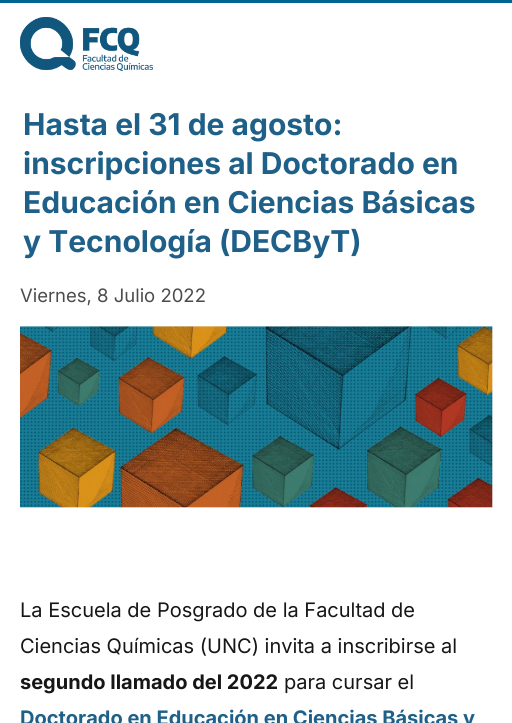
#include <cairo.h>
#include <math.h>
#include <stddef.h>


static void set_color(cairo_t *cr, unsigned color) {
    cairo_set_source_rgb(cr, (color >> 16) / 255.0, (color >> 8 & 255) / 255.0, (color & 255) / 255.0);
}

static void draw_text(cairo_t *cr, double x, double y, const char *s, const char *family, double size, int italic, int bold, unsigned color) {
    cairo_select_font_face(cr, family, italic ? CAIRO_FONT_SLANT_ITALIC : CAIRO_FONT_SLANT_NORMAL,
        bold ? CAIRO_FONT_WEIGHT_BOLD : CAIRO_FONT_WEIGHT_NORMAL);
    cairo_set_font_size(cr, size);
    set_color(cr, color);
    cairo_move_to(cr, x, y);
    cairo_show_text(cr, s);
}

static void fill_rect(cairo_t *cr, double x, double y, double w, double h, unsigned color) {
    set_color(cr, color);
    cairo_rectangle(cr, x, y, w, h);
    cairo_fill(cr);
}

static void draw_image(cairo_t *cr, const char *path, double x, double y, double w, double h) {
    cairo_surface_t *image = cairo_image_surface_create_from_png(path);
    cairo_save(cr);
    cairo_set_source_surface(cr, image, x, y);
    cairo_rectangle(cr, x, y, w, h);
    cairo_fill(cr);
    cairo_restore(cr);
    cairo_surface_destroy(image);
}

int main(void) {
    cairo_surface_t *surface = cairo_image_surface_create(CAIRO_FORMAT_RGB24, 512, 723);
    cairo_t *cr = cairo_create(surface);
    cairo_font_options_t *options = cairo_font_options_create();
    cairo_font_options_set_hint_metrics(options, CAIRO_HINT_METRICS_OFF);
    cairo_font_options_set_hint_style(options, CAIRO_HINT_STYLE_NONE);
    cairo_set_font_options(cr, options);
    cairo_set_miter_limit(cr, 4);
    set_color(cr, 0xFFFFFF);
    cairo_paint(cr);
    draw_image(cr, "assets/img1.png", 0, 0, 512, 3);
    draw_image(cr, "assets/img2.png", 20, 17, 133, 54);
    draw_text(cr, 23, 135, "Hasta el 31 de agosto:", "Inter", 30, 0, 1, 0x1F6089);
    draw_text(cr, 23, 174, "inscripciones al Doctorado en", "Inter", 30, 0, 1, 0x1F6089);
    draw_text(cr, 23, 213, "Educación en Ciencias Básicas", "Inter", 30, 0, 1, 0x1F6089);
    draw_text(cr, 23, 252, "y Tecnología (DECByT)", "Inter", 30, 0, 1, 0x1F6089);
    draw_text(cr, 20, 302, "Viernes, 8 Julio 2022", "Inter", 18.5, 0, 0, 0x4C4C4C);
    fill_rect(cr, 20, 326, 473, 182, 0xEFF0F1);
    draw_image(cr, "assets/img3.png", 20, 326, 473, 182);
    draw_text(cr, 20, 617, "La Escuela de Posgrado de la Facultad de", "Inter", 20, 0, 0, 0x161616);
    draw_text(cr, 20, 653, "Ciencias Químicas (UNC) invita a inscribirse al", "Inter", 20, 0, 0, 0x161616);
    draw_text(cr, 20, 689, "segundo llamado del 2022", "Inter", 20, 0, 1, 0x161616);
    draw_text(cr, 284, 689, "para cursar el", "Inter", 20, 0, 0, 0x161616);
    draw_text(cr, 20, 725, "Doctorado en Educación en Ciencias Básicas y", "Inter", 20, 0, 1, 0x1F6089);
    cairo_surface_write_to_png(surface, "output.png");
    cairo_font_options_destroy(options);
    cairo_destroy(cr);
    cairo_surface_destroy(surface);
    return 0;
}
